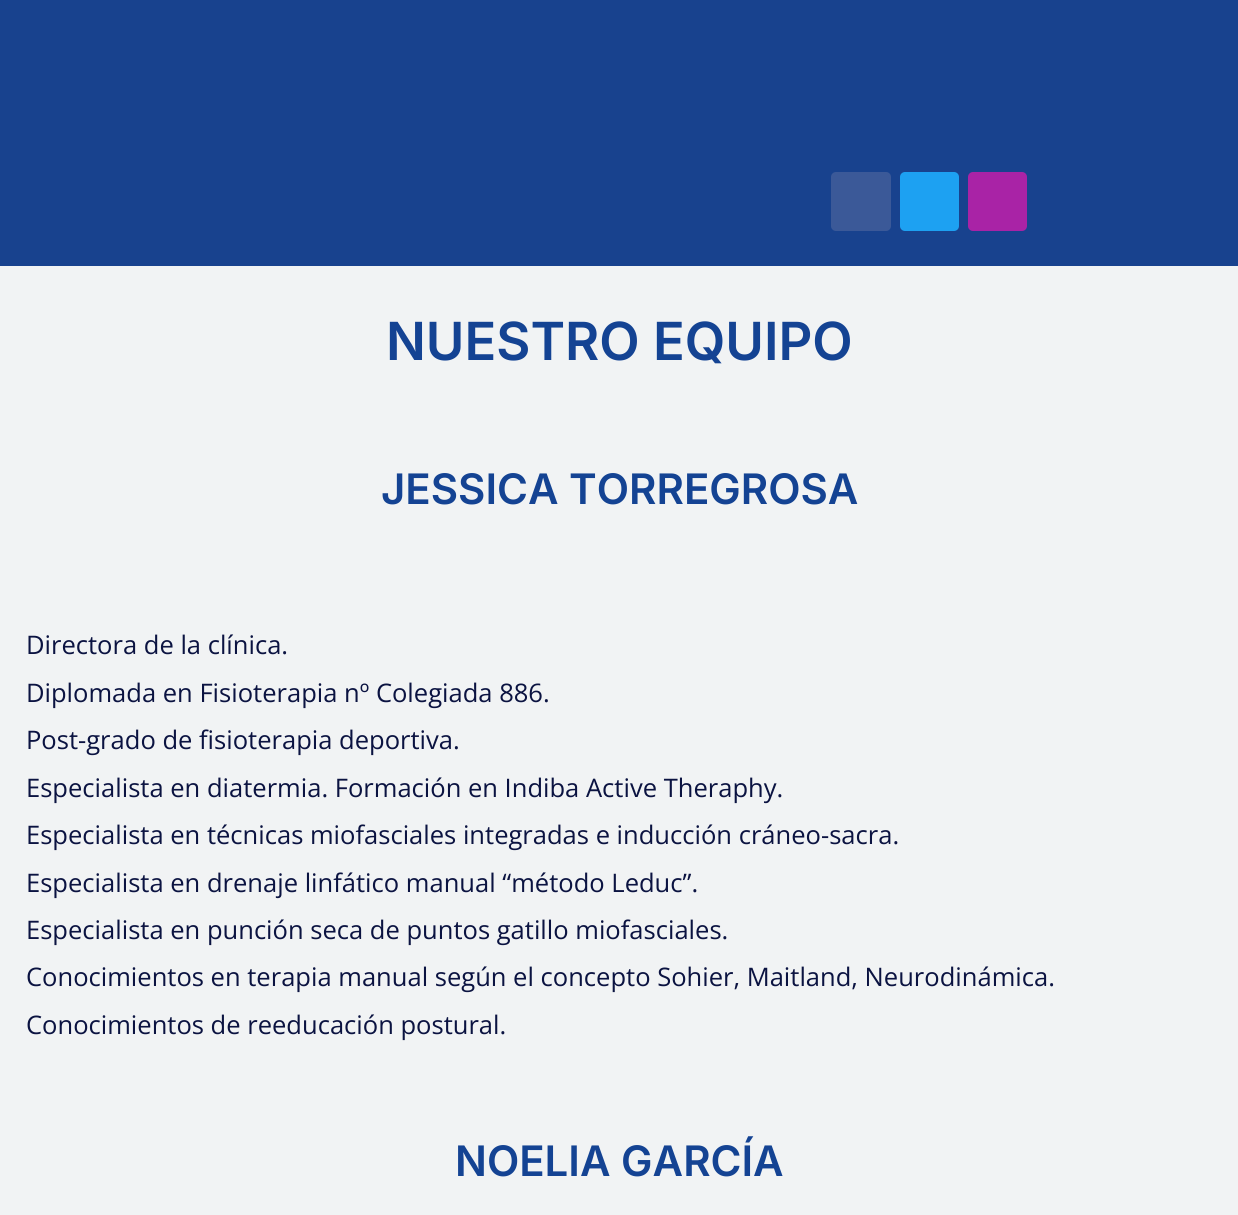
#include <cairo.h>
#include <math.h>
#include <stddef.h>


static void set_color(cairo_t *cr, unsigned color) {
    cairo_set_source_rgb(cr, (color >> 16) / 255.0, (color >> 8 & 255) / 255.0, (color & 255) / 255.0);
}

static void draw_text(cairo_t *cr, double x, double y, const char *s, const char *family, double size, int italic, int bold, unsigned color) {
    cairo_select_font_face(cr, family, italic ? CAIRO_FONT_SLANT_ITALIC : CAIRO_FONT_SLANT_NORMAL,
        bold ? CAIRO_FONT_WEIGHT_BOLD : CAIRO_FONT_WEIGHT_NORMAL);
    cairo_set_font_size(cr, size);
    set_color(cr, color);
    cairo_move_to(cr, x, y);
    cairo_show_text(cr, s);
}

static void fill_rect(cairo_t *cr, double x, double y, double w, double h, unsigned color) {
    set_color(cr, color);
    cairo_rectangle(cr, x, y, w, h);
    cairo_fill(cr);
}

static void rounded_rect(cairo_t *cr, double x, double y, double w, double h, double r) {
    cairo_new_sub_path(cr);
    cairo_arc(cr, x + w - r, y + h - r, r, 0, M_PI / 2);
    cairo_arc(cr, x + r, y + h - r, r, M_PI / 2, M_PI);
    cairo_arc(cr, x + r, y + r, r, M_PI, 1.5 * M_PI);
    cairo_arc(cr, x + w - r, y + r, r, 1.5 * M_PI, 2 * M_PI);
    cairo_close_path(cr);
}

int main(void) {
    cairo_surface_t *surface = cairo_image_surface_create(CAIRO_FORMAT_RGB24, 1238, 1215);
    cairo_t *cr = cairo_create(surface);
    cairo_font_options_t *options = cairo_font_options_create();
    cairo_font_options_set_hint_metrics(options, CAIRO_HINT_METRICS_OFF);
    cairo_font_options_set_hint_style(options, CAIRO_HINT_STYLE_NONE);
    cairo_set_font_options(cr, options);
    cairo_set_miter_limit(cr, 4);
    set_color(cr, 0xF1F3F4);
    cairo_paint(cr);
    fill_rect(cr, 0, 0, 1238, 266, 0x18428E);
    set_color(cr, 0x3B5998);
    rounded_rect(cr, 831, 172, 60, 59, 5);
    cairo_fill(cr);
    set_color(cr, 0x1DA1F2);
    rounded_rect(cr, 900, 172, 59, 59, 5);
    cairo_fill(cr);
    set_color(cr, 0xA923A6);
    rounded_rect(cr, 968, 172, 59, 59, 5);
    cairo_fill(cr);
    draw_text(cr, 386, 360, "NUESTRO EQUIPO", "Inter SemiBold", 52.5, 0, 0, 0x144393);
    draw_text(cr, 381, 504, "JESSICA TORREGROSA", "Inter SemiBold", 42, 0, 0, 0x144393);
    draw_text(cr, 26, 654, "Directora de la clínica.", "Open Sans", 25.55, 0, 0, 0x0B1341);
    draw_text(cr, 26, 702, "Diplomada en Fisioterapia nº Colegiada 886.", "Open Sans", 25.55, 0, 0, 0x0B1341);
    draw_text(cr, 26, 749, "Post-grado de fisioterapia deportiva.", "Open Sans", 25.55, 0, 0, 0x0B1341);
    draw_text(cr, 26, 797, "Especialista en diatermia. Formación en Indiba Active Theraphy.", "Open Sans", 25.55, 0, 0, 0x0B1341);
    draw_text(cr, 26, 844, "Especialista en técnicas miofasciales integradas e inducción cráneo-sacra.", "Open Sans", 25.55, 0, 0, 0x0B1341);
    draw_text(cr, 26, 892, "Especialista en drenaje linfático manual “método Leduc”.", "Open Sans", 25.55, 0, 0, 0x0B1341);
    draw_text(cr, 26, 939, "Especialista en punción seca de puntos gatillo miofasciales.", "Open Sans", 25.55, 0, 0, 0x0B1341);
    draw_text(cr, 26, 986, "Conocimientos en terapia manual según el concepto Sohier, Maitland, Neurodinámica.", "Open Sans", 25.55, 0, 0, 0x0B1341);
    draw_text(cr, 26, 1034, "Conocimientos de reeducación postural.", "Open Sans", 25.55, 0, 0, 0x0B1341);
    draw_text(cr, 455, 1176, "NOELIA GARCÍA", "Inter SemiBold", 42, 0, 0, 0x144393);
    cairo_surface_write_to_png(surface, "output.png");
    cairo_font_options_destroy(options);
    cairo_destroy(cr);
    cairo_surface_destroy(surface);
    return 0;
}
